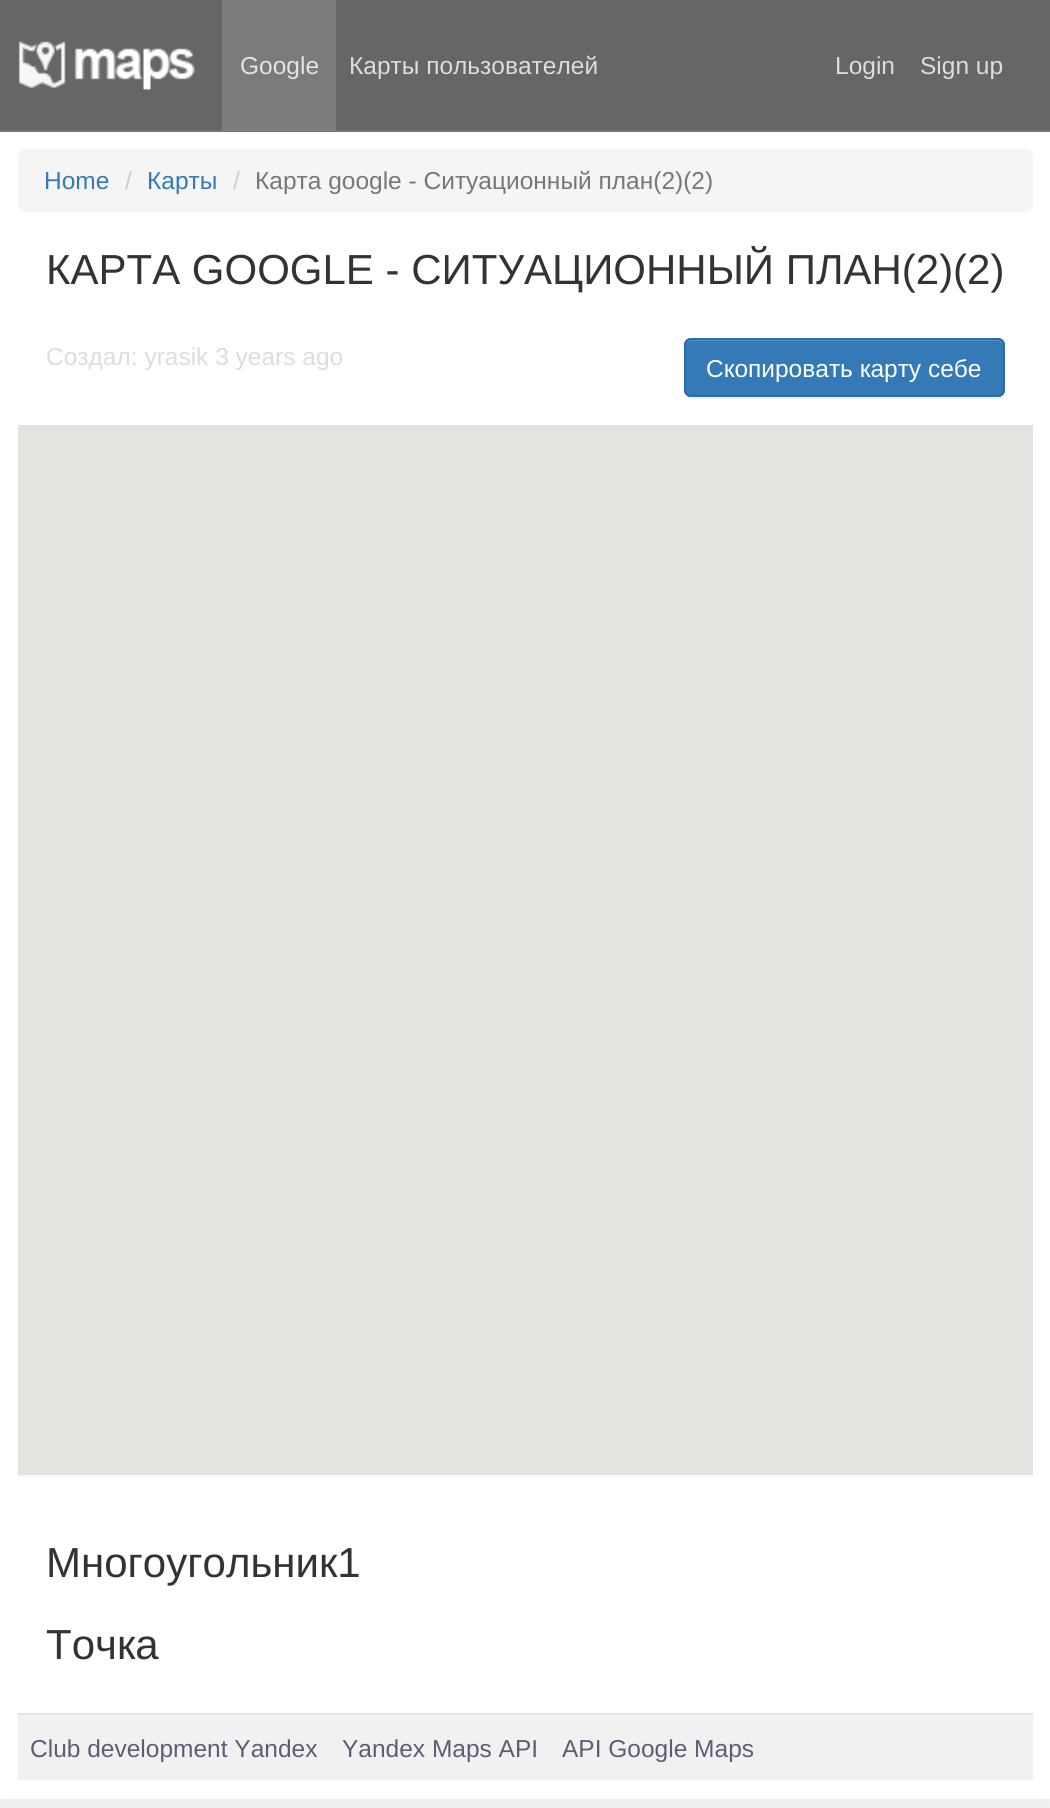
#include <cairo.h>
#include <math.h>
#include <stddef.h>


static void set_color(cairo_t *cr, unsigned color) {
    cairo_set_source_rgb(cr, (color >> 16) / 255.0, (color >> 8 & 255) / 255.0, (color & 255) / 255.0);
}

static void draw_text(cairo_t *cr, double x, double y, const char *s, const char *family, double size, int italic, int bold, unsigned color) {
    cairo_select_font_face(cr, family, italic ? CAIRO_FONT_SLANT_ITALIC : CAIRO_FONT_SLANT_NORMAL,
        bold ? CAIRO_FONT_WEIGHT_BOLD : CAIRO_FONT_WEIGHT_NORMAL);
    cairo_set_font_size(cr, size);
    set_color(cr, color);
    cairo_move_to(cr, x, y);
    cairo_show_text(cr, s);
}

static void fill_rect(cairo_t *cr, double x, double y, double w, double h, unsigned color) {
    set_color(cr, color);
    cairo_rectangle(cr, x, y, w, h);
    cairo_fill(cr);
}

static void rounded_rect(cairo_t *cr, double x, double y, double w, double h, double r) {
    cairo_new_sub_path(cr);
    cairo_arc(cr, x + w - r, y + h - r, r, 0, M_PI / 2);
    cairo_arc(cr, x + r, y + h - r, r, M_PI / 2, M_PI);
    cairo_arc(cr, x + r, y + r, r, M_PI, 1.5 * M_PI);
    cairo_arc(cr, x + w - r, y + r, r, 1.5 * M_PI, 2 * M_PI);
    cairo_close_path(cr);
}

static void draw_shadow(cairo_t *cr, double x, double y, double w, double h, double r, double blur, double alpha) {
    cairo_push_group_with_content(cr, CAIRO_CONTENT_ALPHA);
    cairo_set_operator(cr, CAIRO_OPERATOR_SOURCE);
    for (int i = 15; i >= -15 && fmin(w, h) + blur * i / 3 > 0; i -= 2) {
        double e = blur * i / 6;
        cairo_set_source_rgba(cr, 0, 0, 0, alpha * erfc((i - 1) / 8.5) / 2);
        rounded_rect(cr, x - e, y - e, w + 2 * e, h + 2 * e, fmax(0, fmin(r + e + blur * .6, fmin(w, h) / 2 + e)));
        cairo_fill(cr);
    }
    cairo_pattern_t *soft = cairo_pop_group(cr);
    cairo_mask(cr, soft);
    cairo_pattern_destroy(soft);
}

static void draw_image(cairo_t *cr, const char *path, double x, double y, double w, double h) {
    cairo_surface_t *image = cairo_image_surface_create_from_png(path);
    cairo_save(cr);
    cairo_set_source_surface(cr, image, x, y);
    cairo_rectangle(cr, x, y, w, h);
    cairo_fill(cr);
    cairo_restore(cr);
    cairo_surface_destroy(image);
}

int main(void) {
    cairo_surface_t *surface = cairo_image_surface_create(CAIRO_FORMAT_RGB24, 1050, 1808);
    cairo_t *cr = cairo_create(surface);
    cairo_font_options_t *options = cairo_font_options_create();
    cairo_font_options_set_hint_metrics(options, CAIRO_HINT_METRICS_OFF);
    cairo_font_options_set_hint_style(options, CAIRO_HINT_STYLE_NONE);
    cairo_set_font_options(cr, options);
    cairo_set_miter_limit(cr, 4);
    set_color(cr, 0xF6F6F6);
    cairo_paint(cr);
    set_color(cr, 0x000000);
    draw_shadow(cr, 0, 9, 1050, 1799, 0, 9, 0.05);
    fill_rect(cr, 0, 0, 1050, 130, 0x666666);
    fill_rect(cr, 222, 0, 114, 130, 0x7D7A7C);
    fill_rect(cr, 0, 130, 1050, 2, 0x737373);
    fill_rect(cr, 222, 130, 114, 1, 0x858284);
    draw_image(cr, "assets/img1.png", 18, 41, 177, 49);
    draw_text(cr, 240, 74, "Google", "Liberation Sans", 24.5, 0, 0, 0xE5E4E5);
    draw_text(cr, 349, 74, "Карты пользователей", "Liberation Sans", 24.5, 0, 0, 0xDDDDDD);
    draw_text(cr, 835, 74, "Login", "Liberation Sans", 24.5, 0, 0, 0xDDDDDD);
    draw_text(cr, 920, 74, "Sign up", "Liberation Sans", 24.5, 0, 0, 0xDDDDDD);
    fill_rect(cr, 0, 132, 1050, 1667, 0xFFFFFF);
    set_color(cr, 0xF5F5F5);
    rounded_rect(cr, 18, 149, 1015, 63, 7);
    cairo_fill(cr);
    draw_text(cr, 44, 189, "Home", "Liberation Sans", 24.5, 0, 0, 0x337AB7);
    draw_text(cr, 125, 189, "/", "Liberation Sans", 24.5, 0, 0, 0xCCCCCC);
    draw_text(cr, 147, 189, "Карты", "Liberation Sans", 24.5, 0, 0, 0x337AB7);
    draw_text(cr, 233, 189, "/", "Liberation Sans", 24.5, 0, 0, 0xCCCCCC);
    draw_text(cr, 255, 189, "Карта google - Ситуационный план(2)(2)", "Liberation Sans", 24.5, 0, 0, 0x777777);
    draw_text(cr, 46, 284, "КАРТА GOOGLE - СИТУАЦИОННЫЙ ПЛАН(2)(2)", "Liberation Sans", 42, 0, 0, 0x333333);
    draw_text(cr, 46, 365, "Создал: yrasik 3 years ago", "Liberation Sans", 24.5, 0, 0, 0xDDDDDD);
    set_color(cr, 0x000000);
    draw_shadow(cr, 684, 340, 321, 59, 7, 1, 0.07);
    set_color(cr, 0x337AB7);
    rounded_rect(cr, 684, 338, 321, 59, 7);
    cairo_fill(cr);
    set_color(cr, 0x528EC2);
    cairo_new_path(cr);
    cairo_move_to(cr, 691, 341);
    cairo_line_to(cr, 998, 341);
    cairo_curve_to(cr, 1000, 341, 1003, 344, 1003, 346);
    cairo_curve_to(cr, 1003, 343, 1001, 340, 998, 340);
    cairo_line_to(cr, 691, 340);
    cairo_curve_to(cr, 688, 340, 686, 343, 686, 346);
    cairo_curve_to(cr, 686, 344, 688, 341, 691, 341);
    cairo_close_path(cr);
    cairo_fill(cr);
    rounded_rect(cr, 685, 339, 319, 57, 6);
    set_color(cr, 0x2E6DA4);
    cairo_stroke(cr);
    draw_text(cr, 706, 377, "Скопировать карту себе", "Liberation Sans", 24.5, 0, 0, 0xFFFFFF);
    fill_rect(cr, 18, 425, 1015, 1050, 0xE5E3DF);
    fill_rect(cr, 18, 1475, 1015, 2, 0xF7F7F7);
    draw_text(cr, 46, 1577, "Многоугольник1", "Liberation Sans", 42, 0, 0, 0x333333);
    draw_text(cr, 46, 1659, "Точка", "Liberation Sans", 42, 0, 0, 0x333333);
    fill_rect(cr, 18, 1715, 1015, 65, 0xF0F1F1);
    fill_rect(cr, 18, 1713, 1015, 2, 0xE5E5E5);
    draw_text(cr, 30, 1757, "Club development Yandex", "Liberation Sans", 24.5, 0, 0, 0x5D5D76);
    draw_text(cr, 342, 1757, "Yandex Maps API", "Liberation Sans", 24.5, 0, 0, 0x5D5D76);
    draw_text(cr, 562, 1757, "API Google Maps", "Liberation Sans", 24.5, 0, 0, 0x5D5D76);
    cairo_surface_write_to_png(surface, "output.png");
    cairo_font_options_destroy(options);
    cairo_destroy(cr);
    cairo_surface_destroy(surface);
    return 0;
}
